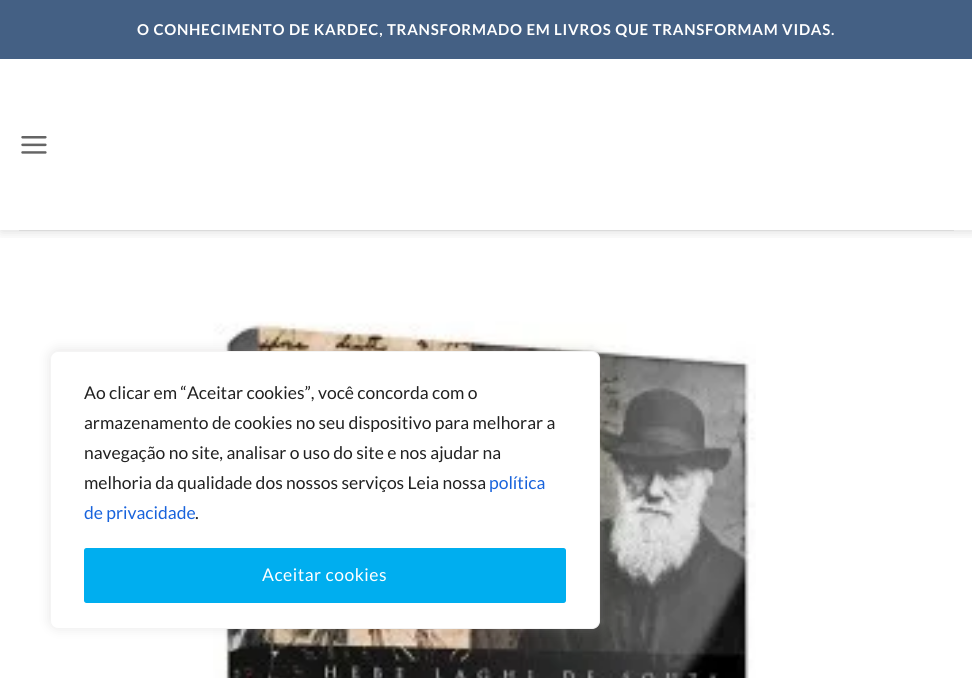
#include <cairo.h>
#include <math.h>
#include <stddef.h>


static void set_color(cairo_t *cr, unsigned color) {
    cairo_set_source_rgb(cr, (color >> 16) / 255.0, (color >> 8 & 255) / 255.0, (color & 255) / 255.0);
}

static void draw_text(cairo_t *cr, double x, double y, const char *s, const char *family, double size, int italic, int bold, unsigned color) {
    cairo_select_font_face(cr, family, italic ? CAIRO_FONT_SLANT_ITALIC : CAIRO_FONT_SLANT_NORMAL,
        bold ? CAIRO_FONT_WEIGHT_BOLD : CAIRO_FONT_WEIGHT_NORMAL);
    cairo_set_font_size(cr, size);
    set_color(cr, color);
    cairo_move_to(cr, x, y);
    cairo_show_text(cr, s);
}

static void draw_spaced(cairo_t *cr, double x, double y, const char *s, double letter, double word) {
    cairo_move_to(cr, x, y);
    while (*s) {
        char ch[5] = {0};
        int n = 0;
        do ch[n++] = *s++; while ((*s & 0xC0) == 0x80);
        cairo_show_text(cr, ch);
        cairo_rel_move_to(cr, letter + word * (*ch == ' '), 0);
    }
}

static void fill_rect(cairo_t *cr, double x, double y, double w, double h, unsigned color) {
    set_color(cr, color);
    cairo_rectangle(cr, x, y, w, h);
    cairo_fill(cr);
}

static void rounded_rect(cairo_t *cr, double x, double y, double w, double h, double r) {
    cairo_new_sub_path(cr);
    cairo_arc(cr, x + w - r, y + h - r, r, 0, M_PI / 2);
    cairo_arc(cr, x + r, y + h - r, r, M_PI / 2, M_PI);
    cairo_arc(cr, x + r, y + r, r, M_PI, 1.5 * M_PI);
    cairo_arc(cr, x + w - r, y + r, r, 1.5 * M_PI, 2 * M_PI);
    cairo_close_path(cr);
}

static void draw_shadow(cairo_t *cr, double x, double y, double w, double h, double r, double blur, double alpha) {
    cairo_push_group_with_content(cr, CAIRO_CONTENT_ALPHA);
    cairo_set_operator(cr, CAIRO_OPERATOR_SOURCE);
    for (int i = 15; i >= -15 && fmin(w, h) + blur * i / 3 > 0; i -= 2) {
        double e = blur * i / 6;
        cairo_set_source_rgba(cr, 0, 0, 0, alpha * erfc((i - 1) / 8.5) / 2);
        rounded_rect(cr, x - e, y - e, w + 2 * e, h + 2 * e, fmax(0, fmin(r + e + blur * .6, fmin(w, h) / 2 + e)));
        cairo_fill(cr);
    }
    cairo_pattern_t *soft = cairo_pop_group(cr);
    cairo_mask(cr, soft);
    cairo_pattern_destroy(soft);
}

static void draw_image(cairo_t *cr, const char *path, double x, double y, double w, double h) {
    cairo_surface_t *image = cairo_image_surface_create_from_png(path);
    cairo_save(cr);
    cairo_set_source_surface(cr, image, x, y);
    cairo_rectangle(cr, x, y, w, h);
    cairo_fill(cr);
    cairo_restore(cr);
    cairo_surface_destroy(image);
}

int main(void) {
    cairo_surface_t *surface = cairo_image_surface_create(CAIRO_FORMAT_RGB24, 972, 678);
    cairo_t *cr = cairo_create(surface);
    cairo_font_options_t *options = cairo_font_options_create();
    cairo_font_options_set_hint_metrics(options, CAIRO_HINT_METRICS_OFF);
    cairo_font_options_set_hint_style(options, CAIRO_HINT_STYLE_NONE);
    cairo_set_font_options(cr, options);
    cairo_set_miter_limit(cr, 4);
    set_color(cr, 0xFFFFFF);
    cairo_paint(cr);
    cairo_save(cr);
    cairo_rectangle(cr, 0, 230, 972, 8);
    cairo_clip(cr);
    set_color(cr, 0x000000);
    draw_shadow(cr, 1, 1, 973, 230, 0, 6, 0.15);
    cairo_restore(cr);
    fill_rect(cr, 0, 0, 972, 59, 0x446084);
    cairo_select_font_face(cr, "Lato", CAIRO_FONT_SLANT_NORMAL, CAIRO_FONT_WEIGHT_BOLD);
    cairo_set_font_size(cr, 15);
    set_color(cr, 0xFFFFFF);
    draw_spaced(cr, 137, 35, "O CONHECIMENTO DE KARDEC, TRANSFORMADO EM LIVROS QUE TRANSFORMAM VIDAS.", 0.75, 0);
    draw_image(cr, "assets/img1.png", 21, 136, 26, 18);
    fill_rect(cr, 19, 230, 935, 1, 0xDBDBDB);
    draw_image(cr, "assets/img2.png", 213, 321, 543, 357);
    set_color(cr, 0xACABAB);
    draw_shadow(cr, 50, 350, 550, 278, 8, 6, 0.3);
    set_color(cr, 0xFFFFFF);
    rounded_rect(cr, 50.5, 351.5, 549, 277, 7.5);
    cairo_fill_preserve(cr);
    set_color(cr, 0xF4F4F4);
    cairo_set_line_width(cr, 1);
    cairo_stroke(cr);
    draw_text(cr, 84, 399, "Ao clicar em “Aceitar cookies”, você concorda com o", "Lato", 17.5, 0, 0, 0x212121);
    draw_text(cr, 84, 429, "armazenamento de cookies no seu dispositivo para melhorar a", "Lato", 17.5, 0, 0, 0x212121);
    draw_text(cr, 84, 459, "navegação no site, analisar o uso do site e nos ajudar na", "Lato", 17.5, 0, 0, 0x212121);
    draw_text(cr, 84, 489, "melhoria da qualidade dos nossos serviços Leia nossa", "Lato", 17.5, 0, 0, 0x212121);
    draw_text(cr, 489, 489, "política", "Lato", 17.5, 0, 0, 0x1863DC);
    draw_text(cr, 84, 519, "de privacidade", "Lato", 17.5, 0, 0, 0x1863DC);
    draw_text(cr, 195, 519, ".", "Lato", 17.5, 0, 0, 0x212121);
    set_color(cr, 0x00AEEF);
    rounded_rect(cr, 85.5, 549.5, 479, 52, 1);
    cairo_fill_preserve(cr);
    cairo_set_line_width(cr, 3);
    cairo_stroke(cr);
    set_color(cr, 0xFFFFFF);
    draw_spaced(cr, 262, 581, "Aceitar cookies", 0.5, 0);
    cairo_surface_write_to_png(surface, "output.png");
    cairo_font_options_destroy(options);
    cairo_destroy(cr);
    cairo_surface_destroy(surface);
    return 0;
}
